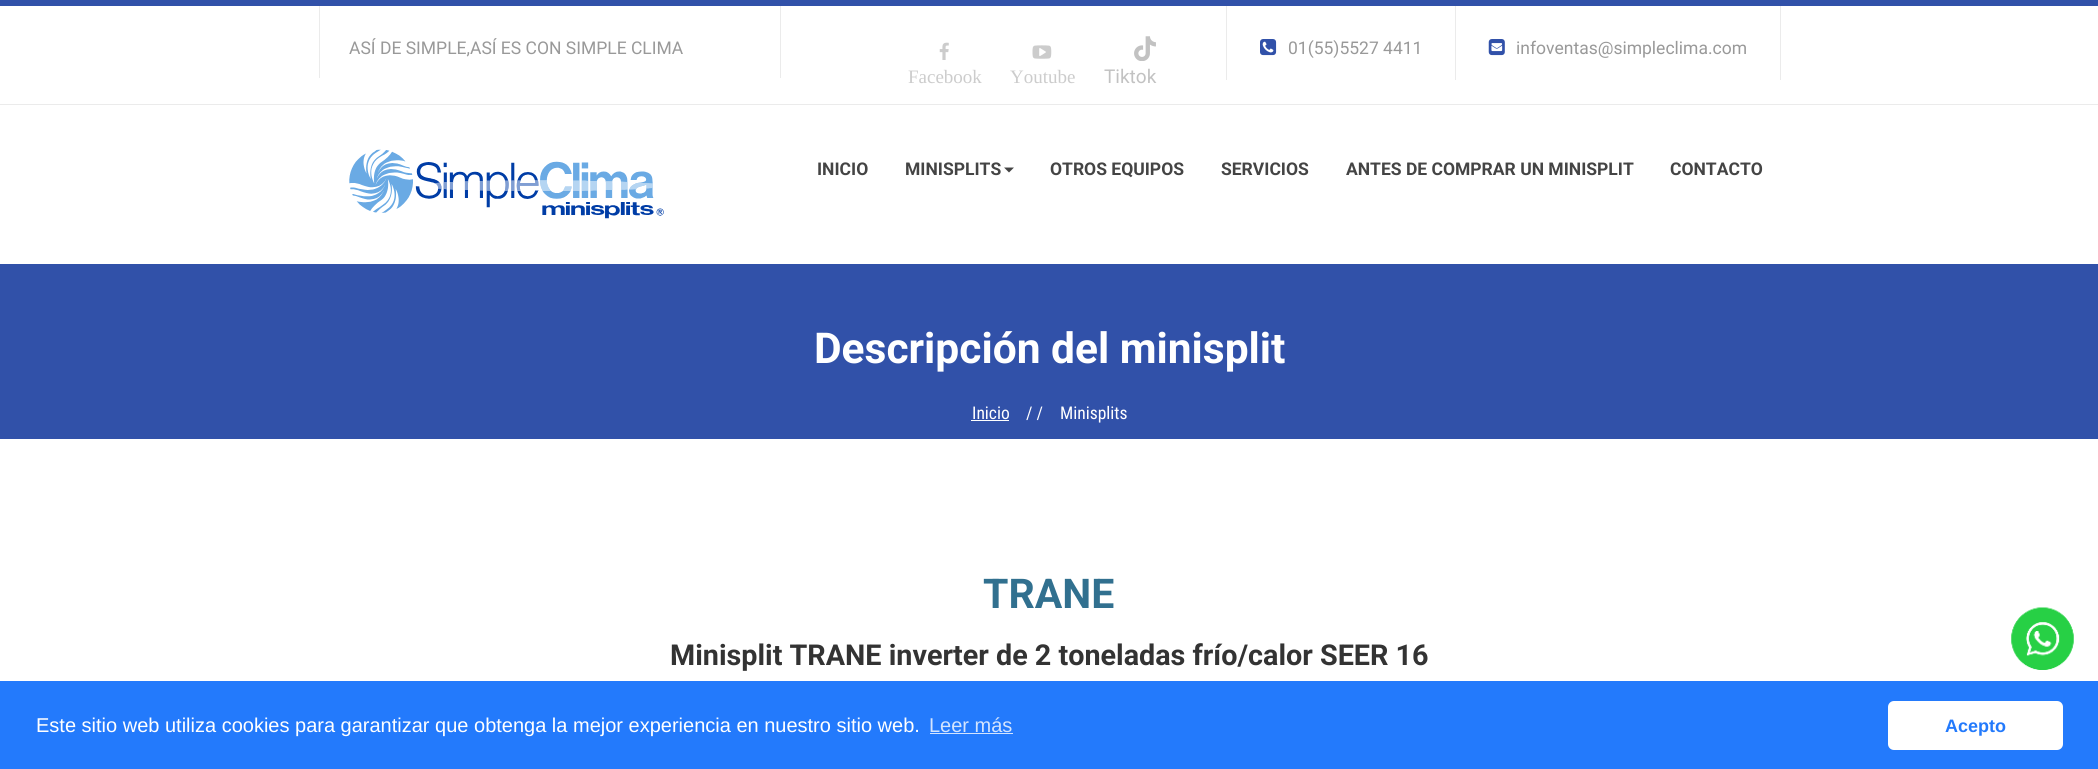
#include <cairo.h>
#include <math.h>
#include <stddef.h>


static void set_color(cairo_t *cr, unsigned color) {
    cairo_set_source_rgb(cr, (color >> 16) / 255.0, (color >> 8 & 255) / 255.0, (color & 255) / 255.0);
}

static void draw_text(cairo_t *cr, double x, double y, const char *s, const char *family, double size, int italic, int bold, unsigned color) {
    cairo_select_font_face(cr, family, italic ? CAIRO_FONT_SLANT_ITALIC : CAIRO_FONT_SLANT_NORMAL,
        bold ? CAIRO_FONT_WEIGHT_BOLD : CAIRO_FONT_WEIGHT_NORMAL);
    cairo_set_font_size(cr, size);
    set_color(cr, color);
    cairo_move_to(cr, x, y);
    cairo_show_text(cr, s);
}

static void fill_rect(cairo_t *cr, double x, double y, double w, double h, unsigned color) {
    set_color(cr, color);
    cairo_rectangle(cr, x, y, w, h);
    cairo_fill(cr);
}

static void rounded_rect(cairo_t *cr, double x, double y, double w, double h, double r) {
    cairo_new_sub_path(cr);
    cairo_arc(cr, x + w - r, y + h - r, r, 0, M_PI / 2);
    cairo_arc(cr, x + r, y + h - r, r, M_PI / 2, M_PI);
    cairo_arc(cr, x + r, y + r, r, M_PI, 1.5 * M_PI);
    cairo_arc(cr, x + w - r, y + r, r, 1.5 * M_PI, 2 * M_PI);
    cairo_close_path(cr);
}

static void draw_image(cairo_t *cr, const char *path, double x, double y, double w, double h) {
    cairo_surface_t *image = cairo_image_surface_create_from_png(path);
    cairo_save(cr);
    cairo_set_source_surface(cr, image, x, y);
    cairo_rectangle(cr, x, y, w, h);
    cairo_fill(cr);
    cairo_restore(cr);
    cairo_surface_destroy(image);
}

int main(void) {
    cairo_surface_t *surface = cairo_image_surface_create(CAIRO_FORMAT_RGB24, 2098, 769);
    cairo_t *cr = cairo_create(surface);
    cairo_font_options_t *options = cairo_font_options_create();
    cairo_font_options_set_hint_metrics(options, CAIRO_HINT_METRICS_OFF);
    cairo_font_options_set_hint_style(options, CAIRO_HINT_STYLE_NONE);
    cairo_set_font_options(cr, options);
    cairo_set_miter_limit(cr, 4);
    set_color(cr, 0xFFFFFF);
    cairo_paint(cr);
    fill_rect(cr, 0, 0, 2098, 6, 0x3151A9);
    fill_rect(cr, 0, 104, 2098, 1, 0xEBEBEB);
    fill_rect(cr, 780, 6, 1, 72, 0xEBEBEB);
    fill_rect(cr, 319, 6, 1, 72, 0xEBEBEB);
    draw_text(cr, 349, 54, "ASÍ DE SIMPLE,ASÍ ES CON SIMPLE CLIMA", "Roboto", 17.5, 0, 0, 0x999999);
    fill_rect(cr, 1226, 6, 1, 74, 0xEBEBEB);
    draw_image(cr, "assets/img1.png", 1260, 39, 17, 17);
    draw_text(cr, 1288, 54, "01(55)5527 4411", "Roboto", 17.5, 0, 0, 0x999999);
    fill_rect(cr, 1780, 6, 1, 74, 0xEBEBEB);
    fill_rect(cr, 1455, 6, 1, 74, 0xEBEBEB);
    draw_image(cr, "assets/img2.png", 1488, 39, 17, 17);
    draw_text(cr, 1516, 54, "infoventas@simpleclima.com", "Roboto", 17.5, 0, 0, 0x999999);
    draw_image(cr, "assets/img3.png", 939, 42, 10, 18);
    draw_text(cr, 908, 83, "Facebook", "Liberation Serif", 19, 0, 0, 0xCCCCCC);
    draw_image(cr, "assets/img4.png", 1032, 45, 20, 14);
    draw_text(cr, 1010, 83, "Youtube", "Liberation Serif", 19, 0, 0, 0xCCCCCC);
    draw_image(cr, "assets/img5.png", 1134, 36, 22, 25);
    draw_text(cr, 1104, 83, "Tiktok", "Roboto", 19, 0, 0, 0xC2C2C2);
    draw_image(cr, "assets/img6.png", 349, 149, 315, 70);
    draw_text(cr, 817, 175, "INICIO", "Roboto", 17.5, 0, 1, 0x444444);
    draw_text(cr, 905, 175, "MINISPLITS", "Roboto", 17.5, 0, 1, 0x444444);
    cairo_new_path(cr);
    cairo_move_to(cr, 1004, 167.5);
    cairo_line_to(cr, 1014, 167.5);
    cairo_line_to(cr, 1009, 172.5);
    cairo_close_path(cr);
    cairo_fill(cr);
    draw_text(cr, 1050, 175, "OTROS EQUIPOS", "Roboto", 17.5, 0, 1, 0x444444);
    draw_text(cr, 1221, 175, "SERVICIOS", "Roboto", 17.5, 0, 1, 0x444444);
    draw_text(cr, 1346, 175, "ANTES DE COMPRAR UN MINISPLIT", "Roboto", 17.5, 0, 1, 0x444444);
    draw_text(cr, 1670, 175, "CONTACTO", "Roboto", 17.5, 0, 1, 0x444444);
    fill_rect(cr, 0, 264, 2098, 175, 0x3151A9);
    draw_text(cr, 814, 363, "Descripción del minisplit", "Roboto", 42.5, 0, 1, 0xFFFFFF);
    draw_text(cr, 972, 419, "Inicio", "Roboto Condensed", 17.5, 0, 0, 0xFFFFFF);
    fill_rect(cr, 971, 420, 38, 1, 0xFFFFFF);
    draw_text(cr, 1026, 419, "/ /", "Roboto Condensed", 17.5, 0, 0, 0xFFFFFF);
    draw_text(cr, 1060, 419, "Minisplits", "Roboto Condensed", 17.5, 0, 0, 0xFFFFFF);
    draw_text(cr, 983, 608, "TRANE", "Roboto", 41, 0, 1, 0x31708F);
    draw_text(cr, 670, 665, "Minisplit TRANE inverter de 2 toneladas frío/calor SEER 16", "Roboto", 28.75, 0, 1, 0x333333);
    draw_image(cr, "assets/img7.png", 2011, 607, 63, 63);
    fill_rect(cr, 0, 681, 2098, 88, 0x237AFC);
    draw_text(cr, 36, 732, "Este sitio web utiliza cookies para garantizar que obtenga la mejor experiencia en nuestro sitio web.", "Liberation Sans", 20, 0, 0, 0xFFFFFF);
    draw_text(cr, 929, 732, "Leer más", "Liberation Sans", 20, 0, 0, 0xD3E4FE);
    fill_rect(cr, 930, 733, 83, 1, 0xD3E4FE);
    set_color(cr, 0xFFFFFF);
    rounded_rect(cr, 1888, 701, 175, 49, 6);
    cairo_fill(cr);
    draw_text(cr, 1945, 732, "Acepto", "Liberation Sans", 18, 0, 1, 0x237AFC);
    cairo_surface_write_to_png(surface, "output.png");
    cairo_font_options_destroy(options);
    cairo_destroy(cr);
    cairo_surface_destroy(surface);
    return 0;
}
